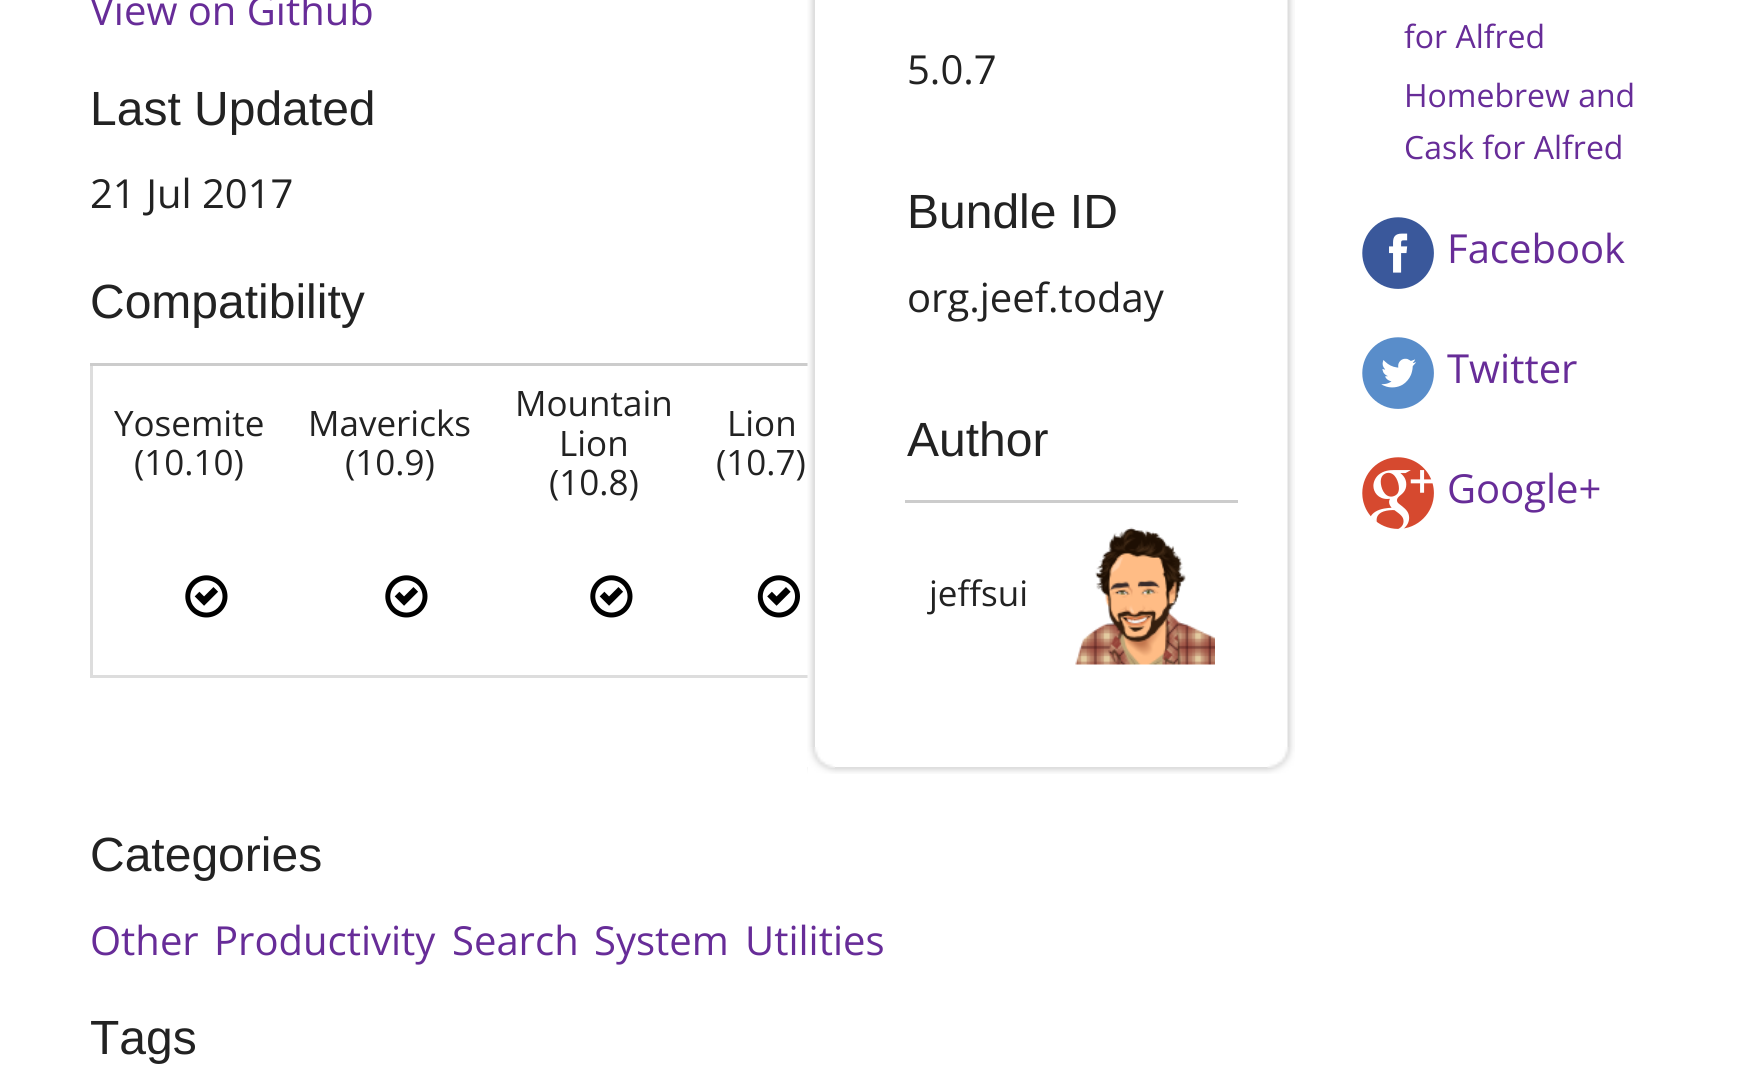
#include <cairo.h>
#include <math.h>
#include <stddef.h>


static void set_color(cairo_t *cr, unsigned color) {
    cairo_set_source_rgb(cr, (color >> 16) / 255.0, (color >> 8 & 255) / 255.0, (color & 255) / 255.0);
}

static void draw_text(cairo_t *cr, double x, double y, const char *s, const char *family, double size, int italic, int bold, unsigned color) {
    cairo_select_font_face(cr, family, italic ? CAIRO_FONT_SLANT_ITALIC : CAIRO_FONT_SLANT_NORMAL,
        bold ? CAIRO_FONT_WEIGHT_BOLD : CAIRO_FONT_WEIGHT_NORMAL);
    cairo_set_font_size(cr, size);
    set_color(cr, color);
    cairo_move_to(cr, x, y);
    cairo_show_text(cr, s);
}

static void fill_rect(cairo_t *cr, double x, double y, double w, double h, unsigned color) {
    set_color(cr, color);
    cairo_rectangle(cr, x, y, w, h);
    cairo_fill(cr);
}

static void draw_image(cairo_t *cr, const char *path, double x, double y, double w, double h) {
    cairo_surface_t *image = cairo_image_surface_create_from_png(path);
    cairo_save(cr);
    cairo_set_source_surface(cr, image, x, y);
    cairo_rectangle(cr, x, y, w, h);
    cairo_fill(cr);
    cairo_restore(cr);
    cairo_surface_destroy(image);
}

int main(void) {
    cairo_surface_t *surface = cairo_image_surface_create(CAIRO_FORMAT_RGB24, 1741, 1068);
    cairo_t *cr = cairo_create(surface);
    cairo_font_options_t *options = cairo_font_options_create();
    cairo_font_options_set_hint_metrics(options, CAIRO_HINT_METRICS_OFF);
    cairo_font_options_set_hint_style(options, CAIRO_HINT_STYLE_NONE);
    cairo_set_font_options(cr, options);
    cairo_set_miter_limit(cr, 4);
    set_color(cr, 0xFFFFFF);
    cairo_paint(cr);
    draw_text(cr, 90, 25, "View on Github", "Open Sans", 40, 0, 0, 0x672C98);
    draw_text(cr, 90, 125, "Last Updated", "Liberation Sans", 48, 0, 0, 0x222222);
    draw_text(cr, 90, 208, "21 Jul 2017", "Open Sans", 40, 0, 0, 0x222222);
    draw_text(cr, 90, 318, "Compatibility", "Liberation Sans", 48, 0, 0, 0x222222);
    fill_rect(cr, 90, 675, 718, 3, 0xDDDDDD);
    fill_rect(cr, 90, 363, 3, 315, 0xDDDDDD);
    fill_rect(cr, 90, 363, 718, 3, 0xCCCCCC);
    draw_text(cr, 114, 436, "Yosemite", "Open Sans", 35, 0, 0, 0x222222);
    draw_text(cr, 134, 475, "(10.10)", "Open Sans", 35, 0, 0, 0x222222);
    draw_text(cr, 308, 436, "Mavericks", "Open Sans", 35, 0, 0, 0x222222);
    draw_text(cr, 345, 475, "(10.9)", "Open Sans", 35, 0, 0, 0x222222);
    draw_text(cr, 515, 416, "Mountain", "Open Sans", 35, 0, 0, 0x222222);
    draw_text(cr, 559, 456, "Lion", "Open Sans", 35, 0, 0, 0x222222);
    draw_text(cr, 549, 495, "(10.8)", "Open Sans", 35, 0, 0, 0x222222);
    draw_text(cr, 727, 436, "Lion", "Open Sans", 35, 0, 0, 0x222222);
    draw_text(cr, 716, 475, "(10.7)", "Open Sans", 35, 0, 0, 0x222222);
    draw_image(cr, "assets/img1.png", 185, 575, 43, 43);
    draw_image(cr, "assets/img1.png", 385, 575, 43, 43);
    draw_image(cr, "assets/img1.png", 590, 575, 43, 43);
    draw_image(cr, "assets/img2.png", 757, 575, 43, 43);
    draw_image(cr, "assets/img3.png", 807, 0, 8, 747);
    draw_image(cr, "assets/img4.png", 1287, 0, 8, 747);
    draw_text(cr, 907, 84, "5.0.7", "Open Sans", 40, 0, 0, 0x222222);
    draw_text(cr, 907, 228, "Bundle ID", "Liberation Sans", 48, 0, 0, 0x222222);
    draw_text(cr, 907, 312, "org.jeef.today", "Open Sans", 40, 0, 0, 0x222222);
    draw_text(cr, 907, 456, "Author", "Liberation Sans", 48, 0, 0, 0x222222);
    fill_rect(cr, 905, 500, 333, 3, 0xCCCCCC);
    draw_text(cr, 929, 606, "jeffsui", "Open Sans", 35, 0, 0, 0x222222);
    draw_image(cr, "assets/img5.png", 1075, 527, 140, 138);
    draw_image(cr, "assets/img6.png", 807, 767, 461, 7);
    draw_image(cr, "assets/img7.png", 807, 747, 28, 27);
    draw_image(cr, "assets/img8.png", 1267, 747, 28, 27);
    draw_text(cr, 1404, 48, "for Alfred", "Open Sans", 32, 0, 0, 0x672C98);
    draw_text(cr, 1404, 107, "Homebrew and", "Open Sans", 32, 0, 0, 0x672C98);
    draw_text(cr, 1404, 159, "Cask for Alfred", "Open Sans", 32, 0, 0, 0x672C98);
    draw_image(cr, "assets/img9.png", 1362, 217, 72, 72);
    draw_text(cr, 1447, 263, "Facebook", "Open Sans", 40, 0, 0, 0x672C98);
    draw_image(cr, "assets/img10.png", 1362, 337, 72, 72);
    draw_text(cr, 1447, 383, "Twitter", "Open Sans", 40, 0, 0, 0x672C98);
    draw_image(cr, "assets/img11.png", 1362, 457, 72, 72);
    draw_text(cr, 1447, 503, "Google+", "Open Sans", 40, 0, 0, 0x672C98);
    draw_text(cr, 90, 871, "Categories", "Liberation Sans", 48, 0, 0, 0x222222);
    draw_text(cr, 90, 955, "Other", "Open Sans", 40, 0, 0, 0x672C98);
    draw_text(cr, 214, 955, "Productivity", "Open Sans", 40, 0, 0, 0x672C98);
    draw_text(cr, 452, 955, "Search", "Open Sans", 40, 0, 0, 0x672C98);
    draw_text(cr, 594, 955, "System", "Open Sans", 40, 0, 0, 0x672C98);
    draw_text(cr, 745, 955, "Utilities", "Open Sans", 40, 0, 0, 0x672C98);
    draw_text(cr, 90, 1054, "Tags", "Liberation Sans", 48, 0, 0, 0x222222);
    cairo_surface_write_to_png(surface, "output.png");
    cairo_font_options_destroy(options);
    cairo_destroy(cr);
    cairo_surface_destroy(surface);
    return 0;
}
